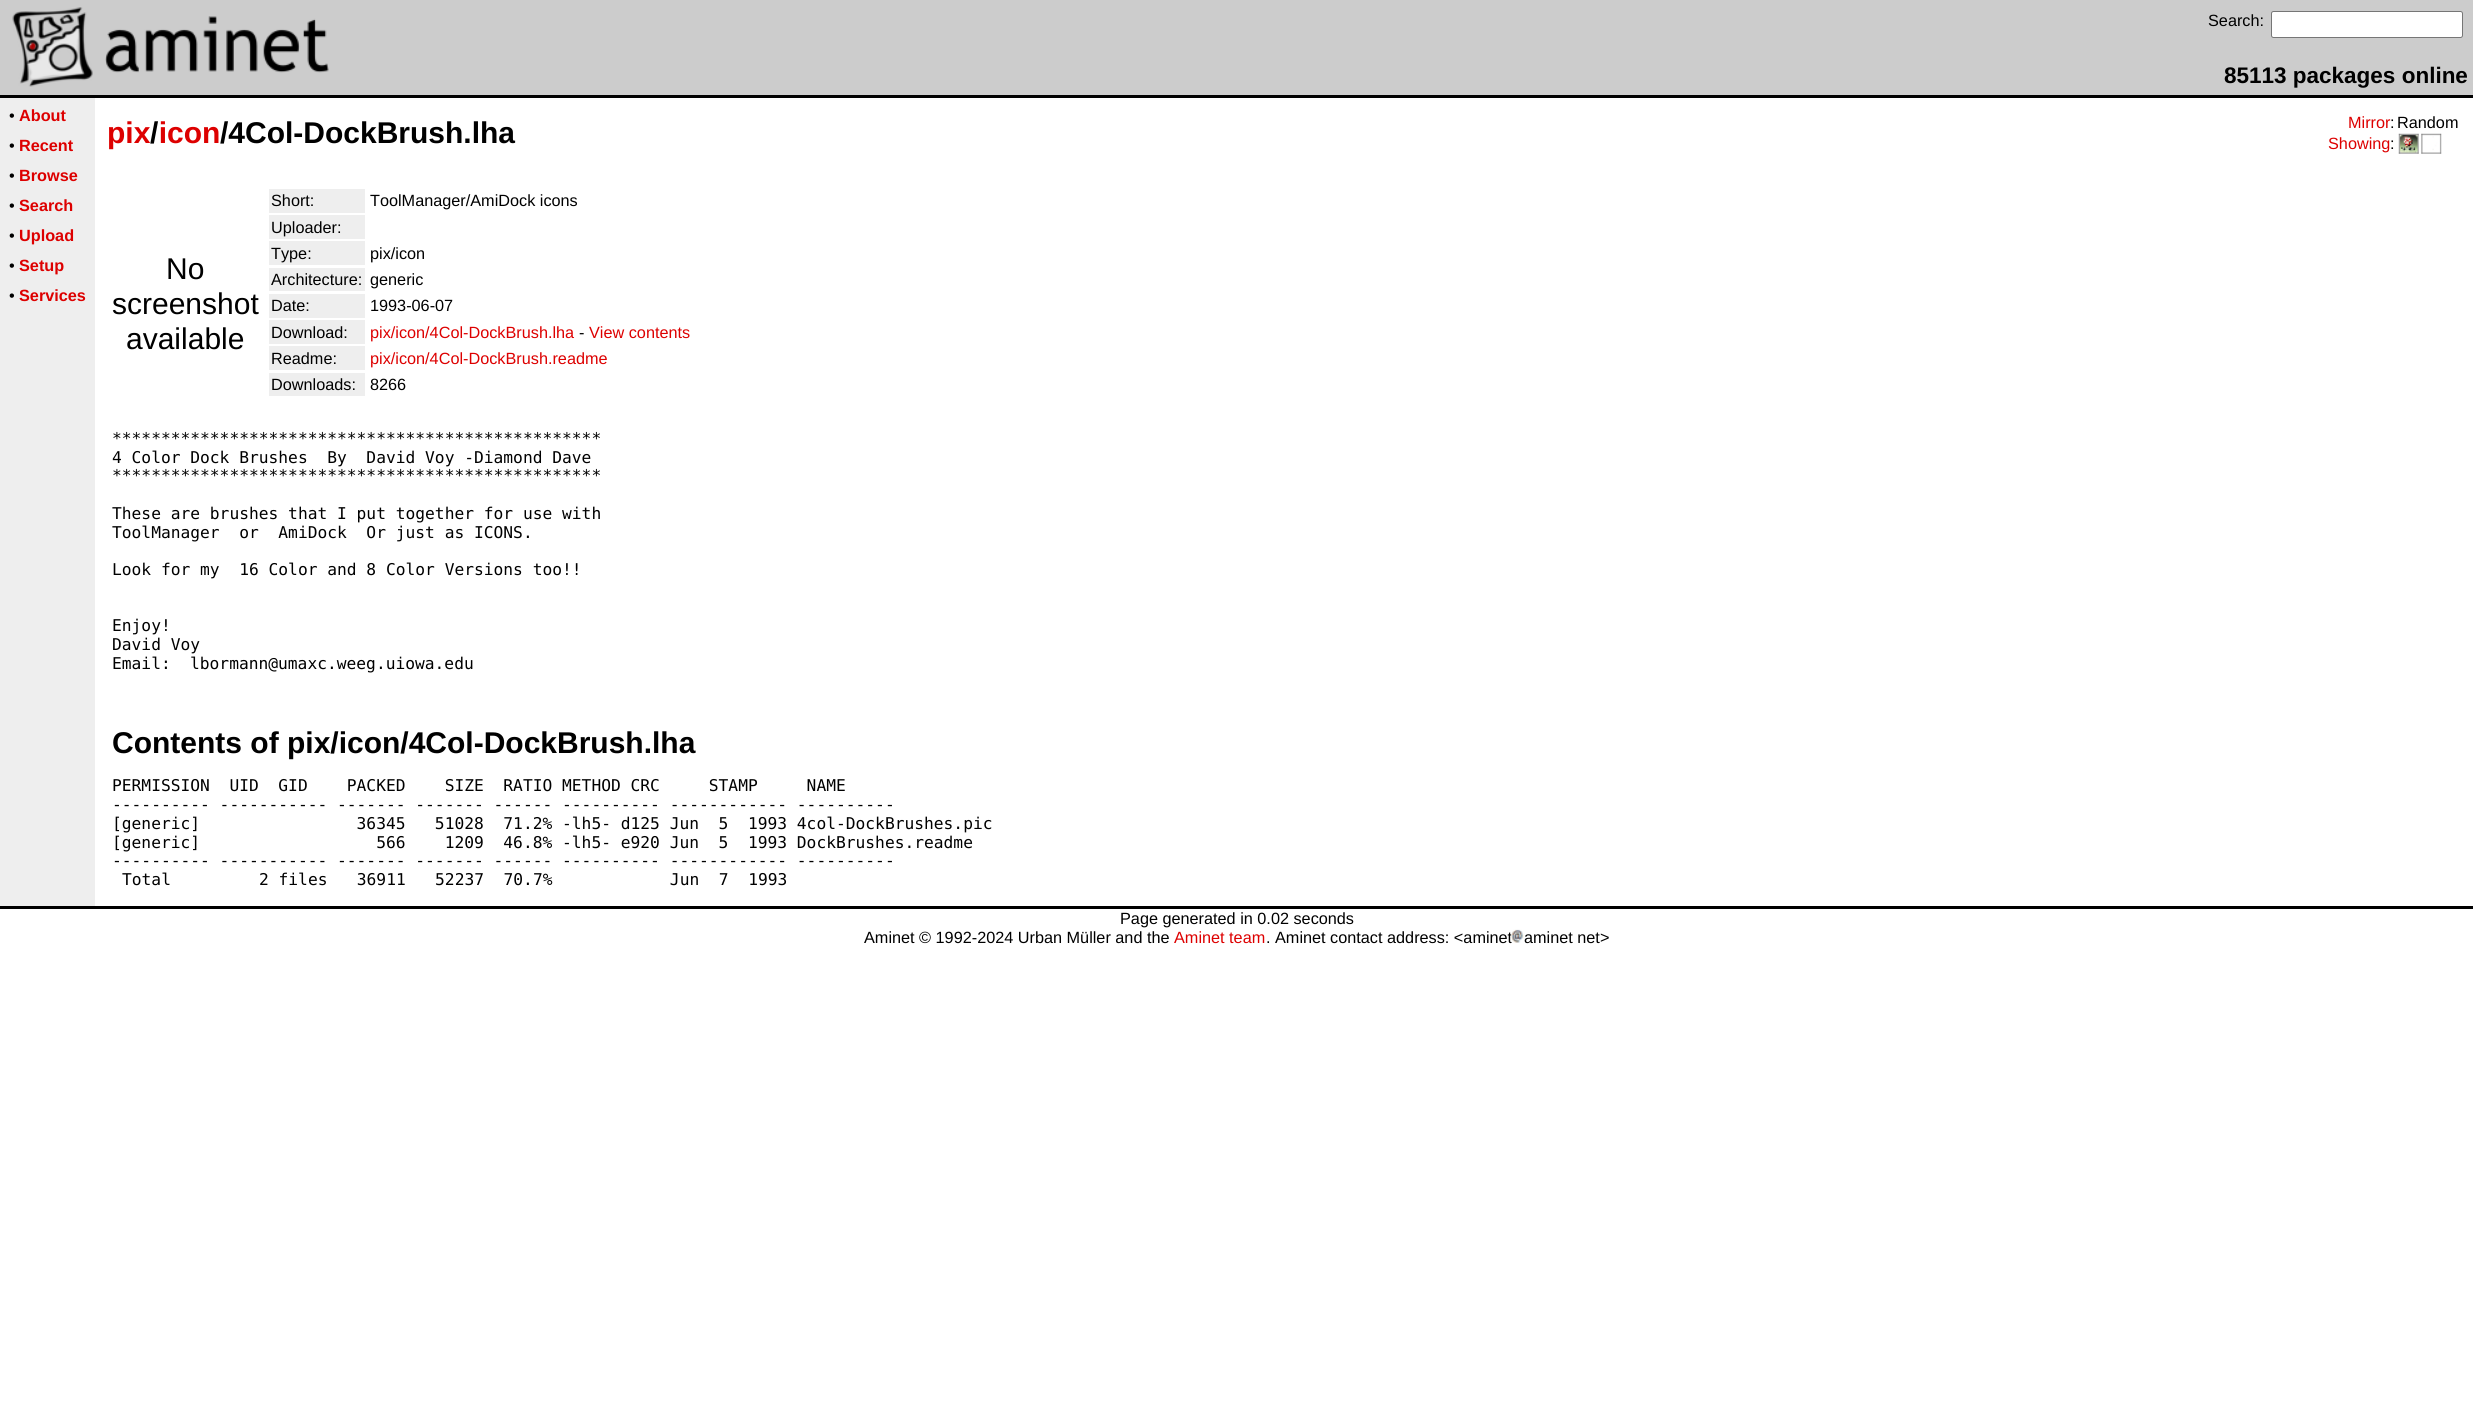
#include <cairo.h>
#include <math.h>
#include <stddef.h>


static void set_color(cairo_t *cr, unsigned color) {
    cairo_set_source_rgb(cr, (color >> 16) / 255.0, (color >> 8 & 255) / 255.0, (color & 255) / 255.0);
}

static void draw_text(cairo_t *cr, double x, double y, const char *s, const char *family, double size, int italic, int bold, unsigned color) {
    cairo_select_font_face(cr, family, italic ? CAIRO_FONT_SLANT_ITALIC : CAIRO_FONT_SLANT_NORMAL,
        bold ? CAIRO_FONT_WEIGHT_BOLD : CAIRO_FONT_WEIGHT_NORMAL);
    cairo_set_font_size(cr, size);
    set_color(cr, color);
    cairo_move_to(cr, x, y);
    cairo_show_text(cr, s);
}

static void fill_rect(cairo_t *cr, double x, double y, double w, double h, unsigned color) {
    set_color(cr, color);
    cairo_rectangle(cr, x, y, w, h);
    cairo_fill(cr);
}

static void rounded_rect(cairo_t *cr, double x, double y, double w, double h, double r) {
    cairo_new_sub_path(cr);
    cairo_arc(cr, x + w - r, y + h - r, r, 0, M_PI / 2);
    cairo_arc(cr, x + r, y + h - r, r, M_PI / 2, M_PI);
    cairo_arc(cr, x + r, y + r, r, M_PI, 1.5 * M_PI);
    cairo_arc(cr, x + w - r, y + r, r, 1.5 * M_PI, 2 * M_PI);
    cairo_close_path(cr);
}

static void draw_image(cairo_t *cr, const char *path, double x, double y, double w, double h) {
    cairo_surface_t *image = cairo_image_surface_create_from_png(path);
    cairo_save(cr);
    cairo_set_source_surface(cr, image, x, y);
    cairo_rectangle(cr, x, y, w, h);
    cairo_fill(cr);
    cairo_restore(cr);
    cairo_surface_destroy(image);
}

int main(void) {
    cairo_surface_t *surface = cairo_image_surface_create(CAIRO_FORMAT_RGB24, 2473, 1414);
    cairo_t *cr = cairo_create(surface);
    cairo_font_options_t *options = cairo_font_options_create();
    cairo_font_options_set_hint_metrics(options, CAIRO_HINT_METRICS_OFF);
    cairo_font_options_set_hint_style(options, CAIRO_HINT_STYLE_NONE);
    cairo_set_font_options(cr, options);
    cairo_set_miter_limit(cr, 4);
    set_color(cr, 0xFFFFFF);
    cairo_paint(cr);
    fill_rect(cr, 0, 0, 2473, 95, 0xCCCCCC);
    draw_image(cr, "assets/img1.png", 12, 7, 81, 80);
    draw_image(cr, "assets/img2.png", 105, 16, 224, 57);
    draw_text(cr, 2208, 26, "Search:", "Liberation Sans", 16.25, 0, 0, 0x000000);
    set_color(cr, 0xFFFFFF);
    rounded_rect(cr, 2271.5, 11.5, 191, 26, 2);
    cairo_fill_preserve(cr);
    set_color(cr, 0x767676);
    cairo_set_line_width(cr, 1);
    cairo_stroke(cr);
    draw_text(cr, 2224, 83, "85113 packages online", "Liberation Sans", 22.5, 0, 1, 0x000000);
    fill_rect(cr, 0, 95, 2473, 3, 0x000000);
    fill_rect(cr, 0, 98, 95, 808, 0xEEEEEE);
    draw_text(cr, 9, 121, "•", "Liberation Sans", 16.25, 0, 0, 0x000000);
    draw_text(cr, 19, 121, "About", "Liberation Sans", 16.25, 0, 1, 0xDD0000);
    draw_text(cr, 9, 151, "•", "Liberation Sans", 16.25, 0, 0, 0x000000);
    draw_text(cr, 19, 151, "Recent", "Liberation Sans", 16.25, 0, 1, 0xDD0000);
    draw_text(cr, 9, 181, "•", "Liberation Sans", 16.25, 0, 0, 0x000000);
    draw_text(cr, 19, 181, "Browse", "Liberation Sans", 16.25, 0, 1, 0xDD0000);
    draw_text(cr, 9, 211, "•", "Liberation Sans", 16.25, 0, 0, 0x000000);
    draw_text(cr, 19, 211, "Search", "Liberation Sans", 16.25, 0, 1, 0xDD0000);
    draw_text(cr, 9, 241, "•", "Liberation Sans", 16.25, 0, 0, 0x000000);
    draw_text(cr, 19, 241, "Upload", "Liberation Sans", 16.25, 0, 1, 0xDD0000);
    draw_text(cr, 9, 271, "•", "Liberation Sans", 16.25, 0, 0, 0x000000);
    draw_text(cr, 19, 271, "Setup", "Liberation Sans", 16.25, 0, 1, 0xDD0000);
    draw_text(cr, 9, 301, "•", "Liberation Sans", 16.25, 0, 0, 0x000000);
    draw_text(cr, 19, 301, "Services", "Liberation Sans", 16.25, 0, 1, 0xDD0000);
    draw_text(cr, 107, 143, "pix icon", "Liberation Sans", 30, 0, 1, 0xDD0000);
    draw_text(cr, 150, 143, "/", "Liberation Sans", 30, 0, 1, 0x000000);
    draw_text(cr, 220, 143, "/4Col-DockBrush.lha", "Liberation Sans", 30, 0, 1, 0x000000);
    draw_text(cr, 2348, 128, "Mirror", "Liberation Sans", 16.25, 0, 0, 0xDD0000);
    draw_text(cr, 2390, 128, ":", "Liberation Sans", 16.25, 0, 0, 0x000000);
    draw_text(cr, 2397, 128, "Random", "Liberation Sans", 16.25, 0, 0, 0x000000);
    draw_text(cr, 2328, 149, "Showing", "Liberation Sans", 16.25, 0, 0, 0xDD0000);
    draw_text(cr, 2390, 149, ":", "Liberation Sans", 16.25, 0, 0, 0x000000);
    draw_image(cr, "assets/img3.png", 2398, 133, 21, 21);
    draw_image(cr, "assets/img4.png", 2421, 133, 21, 21);
    draw_text(cr, 166, 279, "No", "Liberation Sans", 30, 0, 0, 0x000000);
    draw_text(cr, 112, 314, "screenshot", "Liberation Sans", 30, 0, 0, 0x000000);
    draw_text(cr, 126, 349, "available", "Liberation Sans", 30, 0, 0, 0x000000);
    fill_rect(cr, 269, 189, 96, 24, 0xEEEEEE);
    draw_text(cr, 271, 206, "Short:", "Liberation Sans", 16.25, 0, 0, 0x000000);
    draw_text(cr, 370, 206, "ToolManager/AmiDock icons", "Liberation Sans", 16.25, 0, 0, 0x000000);
    fill_rect(cr, 269, 215, 96, 24, 0xEEEEEE);
    draw_text(cr, 271, 233, "Uploader:", "Liberation Sans", 16.25, 0, 0, 0x000000);
    fill_rect(cr, 269, 241, 96, 24, 0xEEEEEE);
    draw_text(cr, 271, 259, "Type:", "Liberation Sans", 16.25, 0, 0, 0x000000);
    draw_text(cr, 370, 259, "pix/icon", "Liberation Sans", 16.25, 0, 0, 0x000000);
    fill_rect(cr, 269, 268, 96, 23, 0xEEEEEE);
    draw_text(cr, 271, 285, "Architecture:", "Liberation Sans", 16.25, 0, 0, 0x000000);
    draw_text(cr, 370, 285, "generic", "Liberation Sans", 16.25, 0, 0, 0x000000);
    fill_rect(cr, 269, 294, 96, 24, 0xEEEEEE);
    draw_text(cr, 271, 311, "Date:", "Liberation Sans", 16.25, 0, 0, 0x000000);
    draw_text(cr, 370, 311, "1993-06-07", "Liberation Sans", 16.25, 0, 0, 0x000000);
    fill_rect(cr, 269, 320, 96, 24, 0xEEEEEE);
    draw_text(cr, 271, 338, "Download:", "Liberation Sans", 16.25, 0, 0, 0x000000);
    draw_text(cr, 370, 338, "pix/icon/4Col-DockBrush.lha", "Liberation Sans", 16.25, 0, 0, 0xDD0000);
    draw_text(cr, 579, 338, "-", "Liberation Sans", 16.25, 0, 0, 0x000000);
    draw_text(cr, 589, 338, "View contents", "Liberation Sans", 16.25, 0, 0, 0xDD0000);
    fill_rect(cr, 269, 346, 96, 24, 0xEEEEEE);
    draw_text(cr, 271, 364, "Readme:", "Liberation Sans", 16.25, 0, 0, 0x000000);
    draw_text(cr, 370, 364, "pix/icon/4Col-DockBrush.readme", "Liberation Sans", 16.25, 0, 0, 0xDD0000);
    fill_rect(cr, 269, 373, 96, 23, 0xEEEEEE);
    draw_text(cr, 271, 390, "Downloads:", "Liberation Sans", 16.25, 0, 0, 0x000000);
    draw_text(cr, 370, 390, "8266", "Liberation Sans", 16.25, 0, 0, 0x000000);
    draw_text(cr, 112, 444, "**************************************************", "DejaVu Sans Mono", 16.25, 0, 0, 0x000000);
    draw_text(cr, 112, 463, "4 Color Dock Brushes  By  David Voy -Diamond Dave", "DejaVu Sans Mono", 16.25, 0, 0, 0x000000);
    draw_text(cr, 112, 481, "**************************************************", "DejaVu Sans Mono", 16.25, 0, 0, 0x000000);
    draw_text(cr, 112, 519, "These are brushes that I put together for use with", "DejaVu Sans Mono", 16.25, 0, 0, 0x000000);
    draw_text(cr, 112, 538, "ToolManager  or  AmiDock  Or just as ICONS.", "DejaVu Sans Mono", 16.25, 0, 0, 0x000000);
    draw_text(cr, 112, 575, "Look for my  16 Color and 8 Color Versions too!!", "DejaVu Sans Mono", 16.25, 0, 0, 0x000000);
    draw_text(cr, 112, 631, "Enjoy!", "DejaVu Sans Mono", 16.25, 0, 0, 0x000000);
    draw_text(cr, 112, 650, "David Voy", "DejaVu Sans Mono", 16.25, 0, 0, 0x000000);
    draw_text(cr, 112, 669, "Email:", "DejaVu Sans Mono", 16.25, 0, 0, 0x000000);
    draw_text(cr, 190, 669, "lbormann@umaxc.weeg.uiowa.edu", "DejaVu Sans Mono", 16.25, 0, 0, 0x000000);
    draw_text(cr, 112, 753, "Contents of pix/icon/4Col-DockBrush.lha", "Liberation Sans", 30, 0, 1, 0x000000);
    draw_text(cr, 112, 791, "PERMISSION  UID  GID    PACKED    SIZE  RATIO METHOD CRC     STAMP     NAME", "DejaVu Sans Mono", 16.25, 0, 0, 0x000000);
    draw_text(cr, 112, 810, "---------- ----------- ------- ------- ------ ---------- ------------ ----------", "DejaVu Sans Mono", 16.25, 0, 0, 0x000000);
    draw_text(cr, 112, 829, "[generic]                36345   51028  71.2% -lh5- d125 Jun  5  1993 4col-DockBrushes.pic", "DejaVu Sans Mono", 16.25, 0, 0, 0x000000);
    draw_text(cr, 112, 848, "[generic]                  566    1209  46.8% -lh5- e920 Jun  5  1993 DockBrushes.readme", "DejaVu Sans Mono", 16.25, 0, 0, 0x000000);
    draw_text(cr, 112, 866, "---------- ----------- ------- ------- ------ ---------- ------------ ----------", "DejaVu Sans Mono", 16.25, 0, 0, 0x000000);
    draw_text(cr, 122, 885, "Total         2 files   36911   52237  70.7%            Jun  7  1993", "DejaVu Sans Mono", 16.25, 0, 0, 0x000000);
    fill_rect(cr, 0, 906, 2473, 3, 0x000000);
    draw_text(cr, 1120, 924, "Page generated in 0.02 seconds", "Liberation Sans", 16.25, 0, 0, 0x000000);
    draw_text(cr, 864, 943, "Aminet © 1992-2024 Urban Müller and the", "Liberation Sans", 16.25, 0, 0, 0x000000);
    draw_text(cr, 1174, 943, "Aminet team", "Liberation Sans", 16.25, 0, 0, 0xDD0000);
    draw_text(cr, 1266, 943, ". Aminet contact address: <aminet", "Liberation Sans", 16.25, 0, 0, 0x000000);
    draw_image(cr, "assets/img5.png", 1511, 929, 13, 14);
    draw_text(cr, 1524, 943, "aminet net>", "Liberation Sans", 16.25, 0, 0, 0x000000);
    cairo_surface_write_to_png(surface, "output.png");
    cairo_font_options_destroy(options);
    cairo_destroy(cr);
    cairo_surface_destroy(surface);
    return 0;
}
